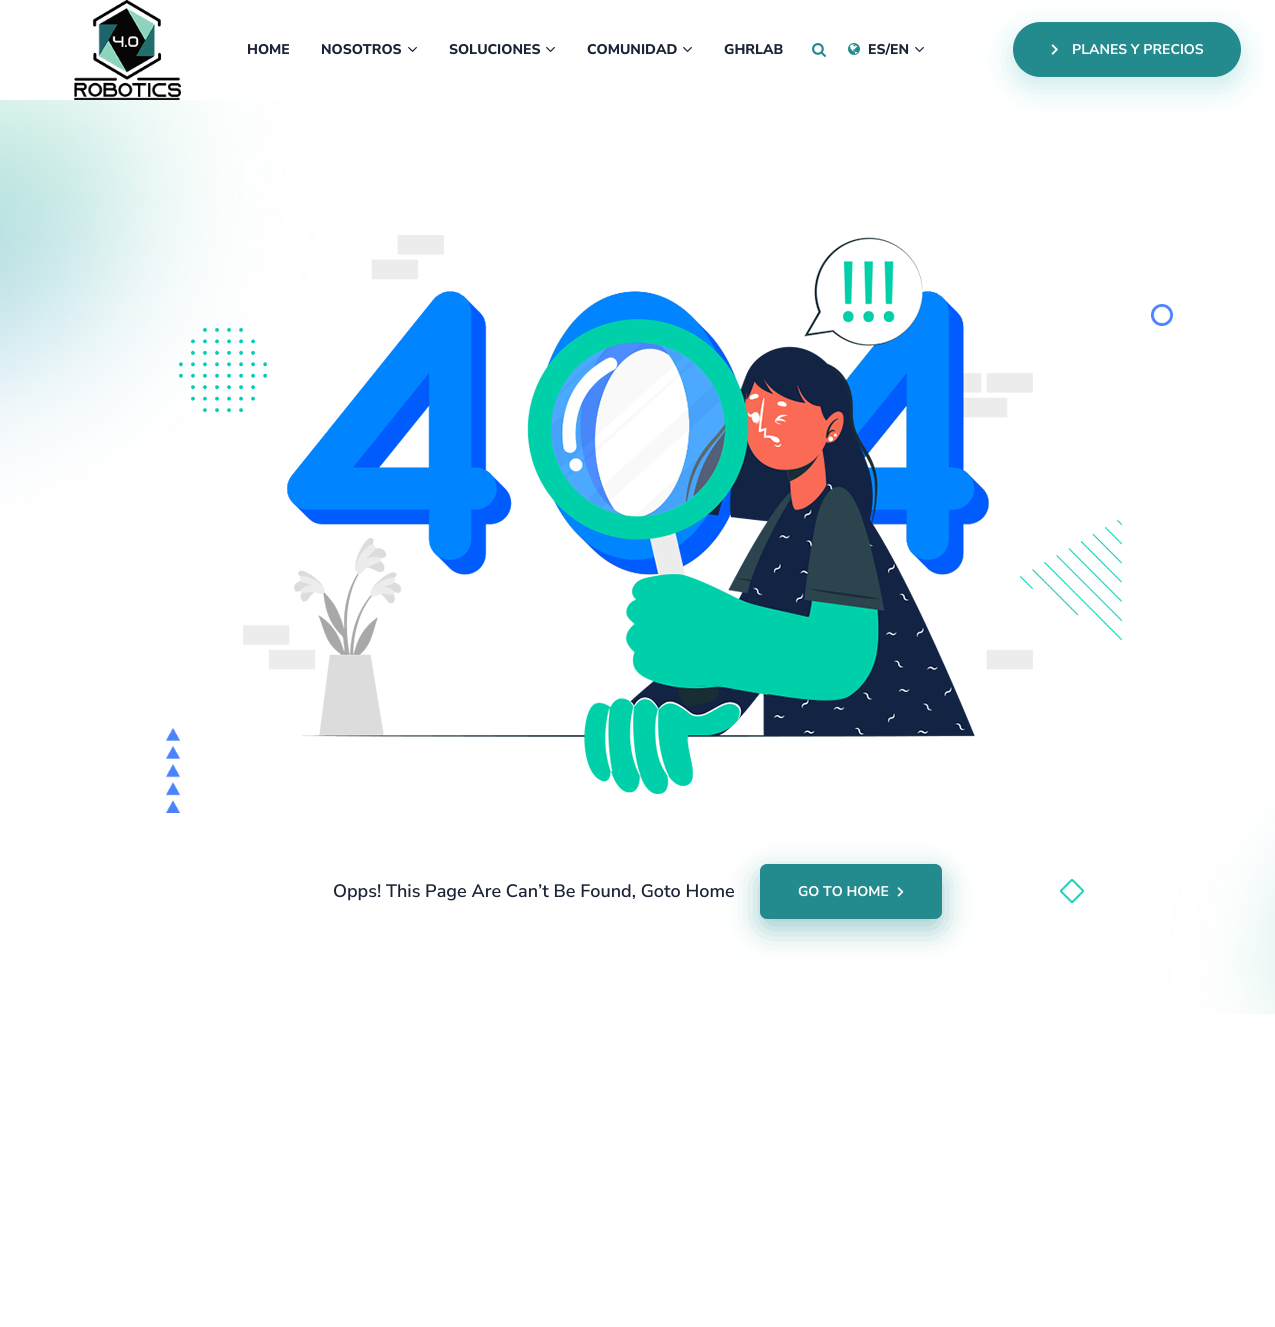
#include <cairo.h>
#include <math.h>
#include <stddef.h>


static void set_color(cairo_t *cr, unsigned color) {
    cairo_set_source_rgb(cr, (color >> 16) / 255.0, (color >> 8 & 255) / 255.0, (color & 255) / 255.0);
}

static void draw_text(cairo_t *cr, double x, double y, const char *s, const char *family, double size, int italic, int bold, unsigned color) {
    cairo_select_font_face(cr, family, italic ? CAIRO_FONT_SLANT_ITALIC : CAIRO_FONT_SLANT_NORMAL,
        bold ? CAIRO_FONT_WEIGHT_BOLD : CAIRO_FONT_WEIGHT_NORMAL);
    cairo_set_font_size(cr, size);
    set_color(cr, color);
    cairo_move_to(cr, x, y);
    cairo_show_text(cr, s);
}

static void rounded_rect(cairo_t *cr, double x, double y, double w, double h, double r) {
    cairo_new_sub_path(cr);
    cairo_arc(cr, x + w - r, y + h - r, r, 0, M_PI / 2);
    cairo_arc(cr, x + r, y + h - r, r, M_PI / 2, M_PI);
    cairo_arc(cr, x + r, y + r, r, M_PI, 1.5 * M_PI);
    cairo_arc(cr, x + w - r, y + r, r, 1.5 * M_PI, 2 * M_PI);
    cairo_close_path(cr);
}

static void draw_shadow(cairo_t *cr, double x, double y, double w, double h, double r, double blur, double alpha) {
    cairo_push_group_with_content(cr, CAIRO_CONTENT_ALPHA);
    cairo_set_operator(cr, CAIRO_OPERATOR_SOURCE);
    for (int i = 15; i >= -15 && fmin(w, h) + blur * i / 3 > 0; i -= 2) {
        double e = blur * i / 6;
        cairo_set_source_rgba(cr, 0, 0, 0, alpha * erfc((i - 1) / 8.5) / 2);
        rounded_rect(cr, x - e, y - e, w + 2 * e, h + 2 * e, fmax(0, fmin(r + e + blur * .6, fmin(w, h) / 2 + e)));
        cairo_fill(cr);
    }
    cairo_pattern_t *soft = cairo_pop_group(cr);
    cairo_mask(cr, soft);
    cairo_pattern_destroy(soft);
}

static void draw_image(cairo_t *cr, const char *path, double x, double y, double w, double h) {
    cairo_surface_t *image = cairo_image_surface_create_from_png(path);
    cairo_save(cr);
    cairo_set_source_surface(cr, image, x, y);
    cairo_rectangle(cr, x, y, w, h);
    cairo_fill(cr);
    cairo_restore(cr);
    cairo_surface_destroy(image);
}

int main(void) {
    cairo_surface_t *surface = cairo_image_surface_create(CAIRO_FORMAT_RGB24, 1275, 1327);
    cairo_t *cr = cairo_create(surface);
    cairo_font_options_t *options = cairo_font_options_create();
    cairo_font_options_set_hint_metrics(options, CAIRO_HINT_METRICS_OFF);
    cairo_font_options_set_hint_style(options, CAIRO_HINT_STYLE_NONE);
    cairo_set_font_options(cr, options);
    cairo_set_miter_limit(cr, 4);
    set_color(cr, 0xFFFFFF);
    cairo_paint(cr);
    draw_image(cr, "assets/img1.png", 74, 0, 107, 100);
    draw_text(cr, 247, 54, "HOME", "Nunito Sans ExtraBold", 14, 0, 0, 0x1B2336);
    draw_text(cr, 321, 54, "NOSOTROS", "Nunito Sans ExtraBold", 14, 0, 0, 0x1B2336);
    draw_image(cr, "assets/img2.png", 408, 46, 9, 7);
    draw_text(cr, 449, 54, "SOLUCIONES", "Nunito Sans ExtraBold", 14, 0, 0, 0x1B2336);
    draw_image(cr, "assets/img2.png", 546, 46, 9, 7);
    draw_text(cr, 587, 54, "COMUNIDAD", "Nunito Sans ExtraBold", 14, 0, 0, 0x1B2336);
    draw_image(cr, "assets/img2.png", 683, 46, 9, 7);
    draw_text(cr, 724, 54, "GHRLAB", "Nunito Sans ExtraBold", 14, 0, 0, 0x1B2336);
    draw_image(cr, "assets/img3.png", 812, 43, 14, 14);
    draw_image(cr, "assets/img4.png", 848, 43, 12, 12);
    draw_text(cr, 868, 54, "ES/EN", "Nunito Sans ExtraBold", 14, 0, 0, 0x1B2336);
    draw_image(cr, "assets/img2.png", 915, 46, 9, 7);
    draw_image(cr, "assets/img6.png", 0, 100, 1275, 914);
    set_color(cr, 0x8CD2D2);
    draw_shadow(cr, 1013, 32, 228, 55, 27.5, 15, 0.45);
    set_color(cr, 0x238A8E);
    rounded_rect(cr, 1013, 22, 228, 55, 27.5);
    cairo_fill(cr);
    draw_image(cr, "assets/img5.png", 1051, 44, 7, 11);
    draw_text(cr, 1072, 54, "PLANES Y PRECIOS", "Nunito Sans", 14, 0, 1, 0xFFFFFF);
    draw_image(cr, "assets/img7.png", 1151, 304, 22, 22);
    draw_image(cr, "assets/img8.png", 179, 328, 88, 84);
    draw_image(cr, "assets/img9.png", 1020, 520, 102, 120);
    draw_image(cr, "assets/img10.png", 166, 728, 14, 85);
    draw_image(cr, "assets/img11.png", 1060, 879, 24, 24);
    draw_image(cr, "assets/img12.png", 243, 235, 790, 559);
    draw_text(cr, 333, 897, "Opps! This Page Are Can’t Be Found, Goto Home", "Nunito Sans SemiBold", 18, 0, 0, 0x1B2336);
    set_color(cr, 0x238A8E);
    draw_shadow(cr, 760, 874, 182, 55, 7, 15, 0.45);
    set_color(cr, 0x238A8E);
    rounded_rect(cr, 760, 864, 182, 55, 7);
    cairo_fill(cr);
    draw_text(cr, 798, 896, "GO TO HOME", "Nunito Sans", 14, 0, 1, 0xFFFFFF);
    draw_image(cr, "assets/img13.png", 897, 887, 7, 10);
    cairo_surface_write_to_png(surface, "output.png");
    cairo_font_options_destroy(options);
    cairo_destroy(cr);
    cairo_surface_destroy(surface);
    return 0;
}
